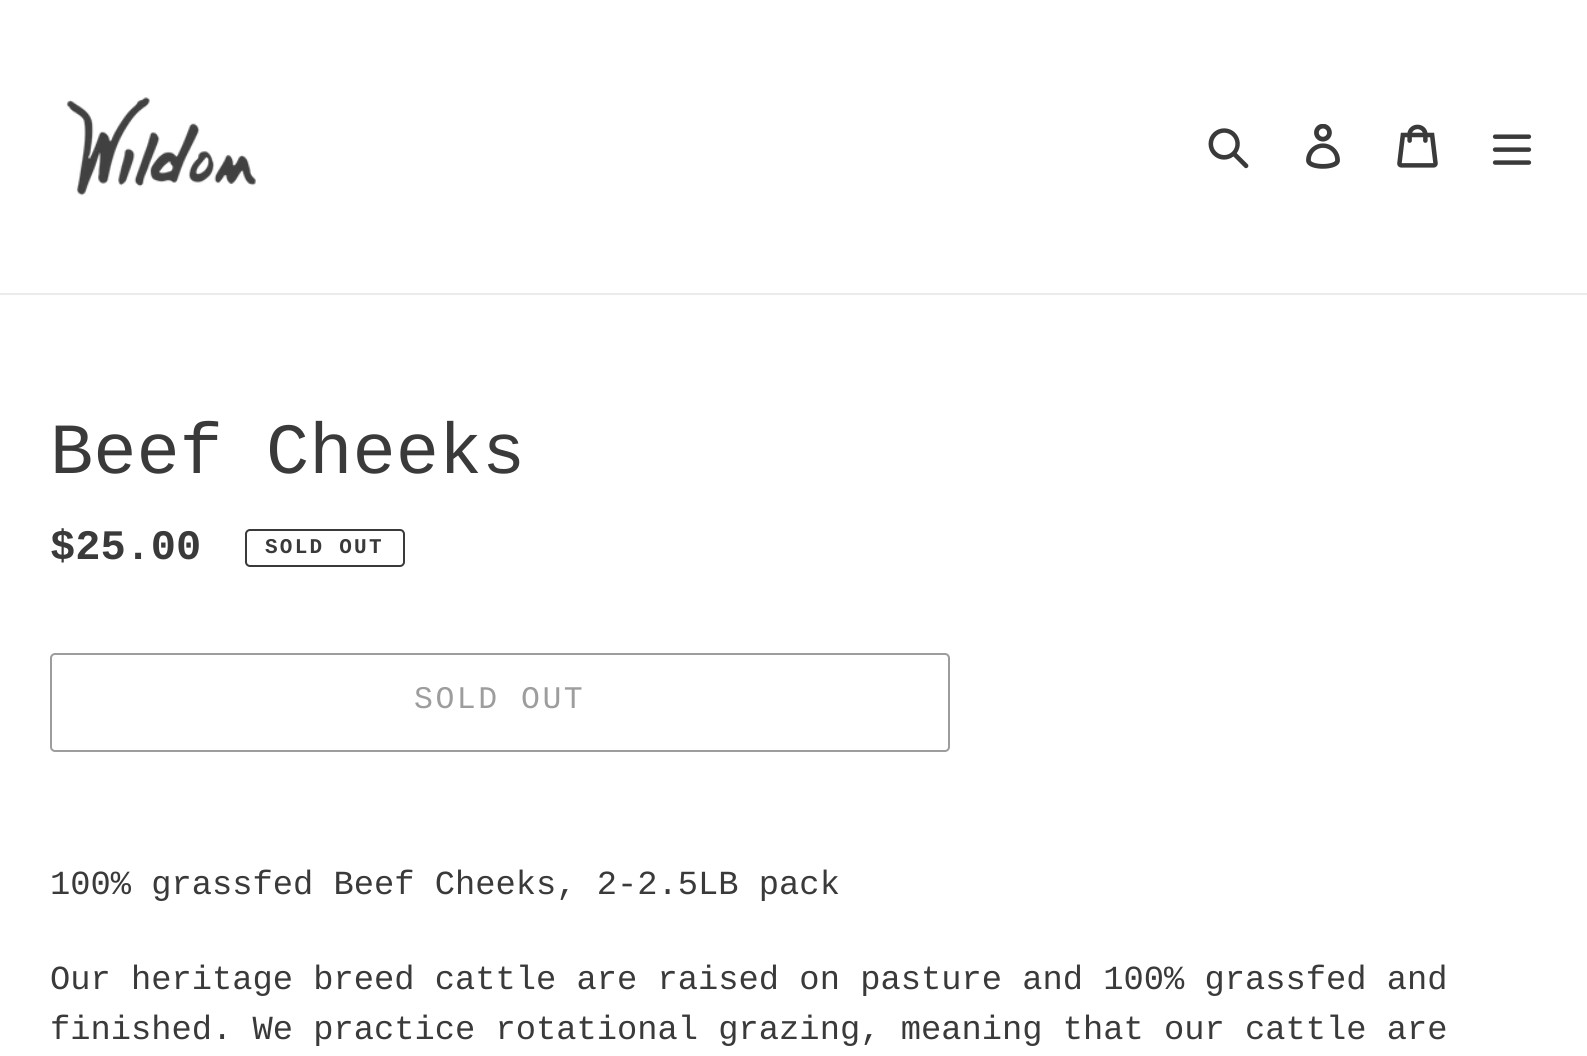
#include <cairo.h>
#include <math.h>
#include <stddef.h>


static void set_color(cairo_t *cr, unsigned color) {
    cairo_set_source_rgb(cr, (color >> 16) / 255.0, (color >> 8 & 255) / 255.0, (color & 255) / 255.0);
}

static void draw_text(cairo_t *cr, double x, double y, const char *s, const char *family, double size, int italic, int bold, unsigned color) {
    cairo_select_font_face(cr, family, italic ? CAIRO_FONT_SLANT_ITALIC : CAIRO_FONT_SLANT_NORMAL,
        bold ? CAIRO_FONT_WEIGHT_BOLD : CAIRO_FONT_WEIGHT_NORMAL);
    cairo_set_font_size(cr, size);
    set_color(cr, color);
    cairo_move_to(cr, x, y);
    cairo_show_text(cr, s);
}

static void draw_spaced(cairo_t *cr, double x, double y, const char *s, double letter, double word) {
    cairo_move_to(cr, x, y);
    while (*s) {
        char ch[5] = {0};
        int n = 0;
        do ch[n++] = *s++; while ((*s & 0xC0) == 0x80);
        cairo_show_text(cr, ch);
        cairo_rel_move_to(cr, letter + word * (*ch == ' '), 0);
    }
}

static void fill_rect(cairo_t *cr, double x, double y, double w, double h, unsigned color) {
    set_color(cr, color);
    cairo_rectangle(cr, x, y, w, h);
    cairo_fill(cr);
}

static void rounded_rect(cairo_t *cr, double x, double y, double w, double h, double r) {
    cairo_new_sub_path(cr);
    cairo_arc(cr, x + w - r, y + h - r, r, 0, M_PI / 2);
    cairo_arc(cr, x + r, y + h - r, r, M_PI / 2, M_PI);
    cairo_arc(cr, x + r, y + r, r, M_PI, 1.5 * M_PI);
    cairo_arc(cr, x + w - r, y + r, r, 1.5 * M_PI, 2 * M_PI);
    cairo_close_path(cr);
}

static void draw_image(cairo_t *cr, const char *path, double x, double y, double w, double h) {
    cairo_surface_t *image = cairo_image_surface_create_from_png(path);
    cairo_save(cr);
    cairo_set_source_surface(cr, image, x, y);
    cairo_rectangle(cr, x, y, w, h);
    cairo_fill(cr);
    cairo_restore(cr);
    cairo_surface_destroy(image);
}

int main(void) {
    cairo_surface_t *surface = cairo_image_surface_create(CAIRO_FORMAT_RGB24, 1587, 1056);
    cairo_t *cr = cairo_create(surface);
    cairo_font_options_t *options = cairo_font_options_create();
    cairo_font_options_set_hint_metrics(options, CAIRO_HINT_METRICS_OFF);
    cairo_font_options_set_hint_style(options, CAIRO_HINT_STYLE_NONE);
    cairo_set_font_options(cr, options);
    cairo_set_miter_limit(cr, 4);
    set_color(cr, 0xFFFFFF);
    cairo_paint(cr);
    fill_rect(cr, 0, 293, 1587, 2, 0xEBEBEB);
    draw_image(cr, "assets/img1.png", 66, 97, 190, 99);
    draw_image(cr, "assets/img2.png", 1208, 128, 41, 41);
    draw_image(cr, "assets/img3.png", 1306, 124, 34, 45);
    draw_image(cr, "assets/img4.png", 1397, 124, 41, 44);
    draw_image(cr, "assets/img5.png", 1492, 134, 40, 31);
    draw_text(cr, 50, 473, "Beef Cheeks", "Liberation Mono", 72, 0, 0, 0x3A3A3A);
    draw_text(cr, 50, 559, "$25.00", "Liberation Mono", 42, 0, 1, 0x3A3A3A);
    rounded_rect(cr, 246, 530, 158, 36, 4);
    cairo_stroke(cr);
    cairo_set_font_size(cr, 21);
    draw_spaced(cr, 265, 553, "SOLD OUT", 2.25, 0);
    rounded_rect(cr, 51, 654, 898, 97, 4);
    set_color(cr, 0x9D9D9D);
    cairo_stroke(cr);
    cairo_select_font_face(cr, "Liberation Mono", CAIRO_FONT_SLANT_NORMAL, CAIRO_FONT_WEIGHT_NORMAL);
    cairo_set_font_size(cr, 31.5);
    draw_spaced(cr, 414, 708, "SOLD OUT", 2.5, 0);
    draw_text(cr, 50, 894, "100% grassfed Beef Cheeks, 2-2.5LB pack", "Liberation Mono", 33.75, 0, 0, 0x3A3A3A);
    draw_text(cr, 50, 989, "Our heritage breed cattle are raised on pasture and 100% grassfed and", "Liberation Mono", 33.75, 0, 0, 0x3A3A3A);
    draw_text(cr, 50, 1039, "finished. We practice rotational grazing, meaning that our cattle are", "Liberation Mono", 33.75, 0, 0, 0x3A3A3A);
    cairo_surface_write_to_png(surface, "output.png");
    cairo_font_options_destroy(options);
    cairo_destroy(cr);
    cairo_surface_destroy(surface);
    return 0;
}
